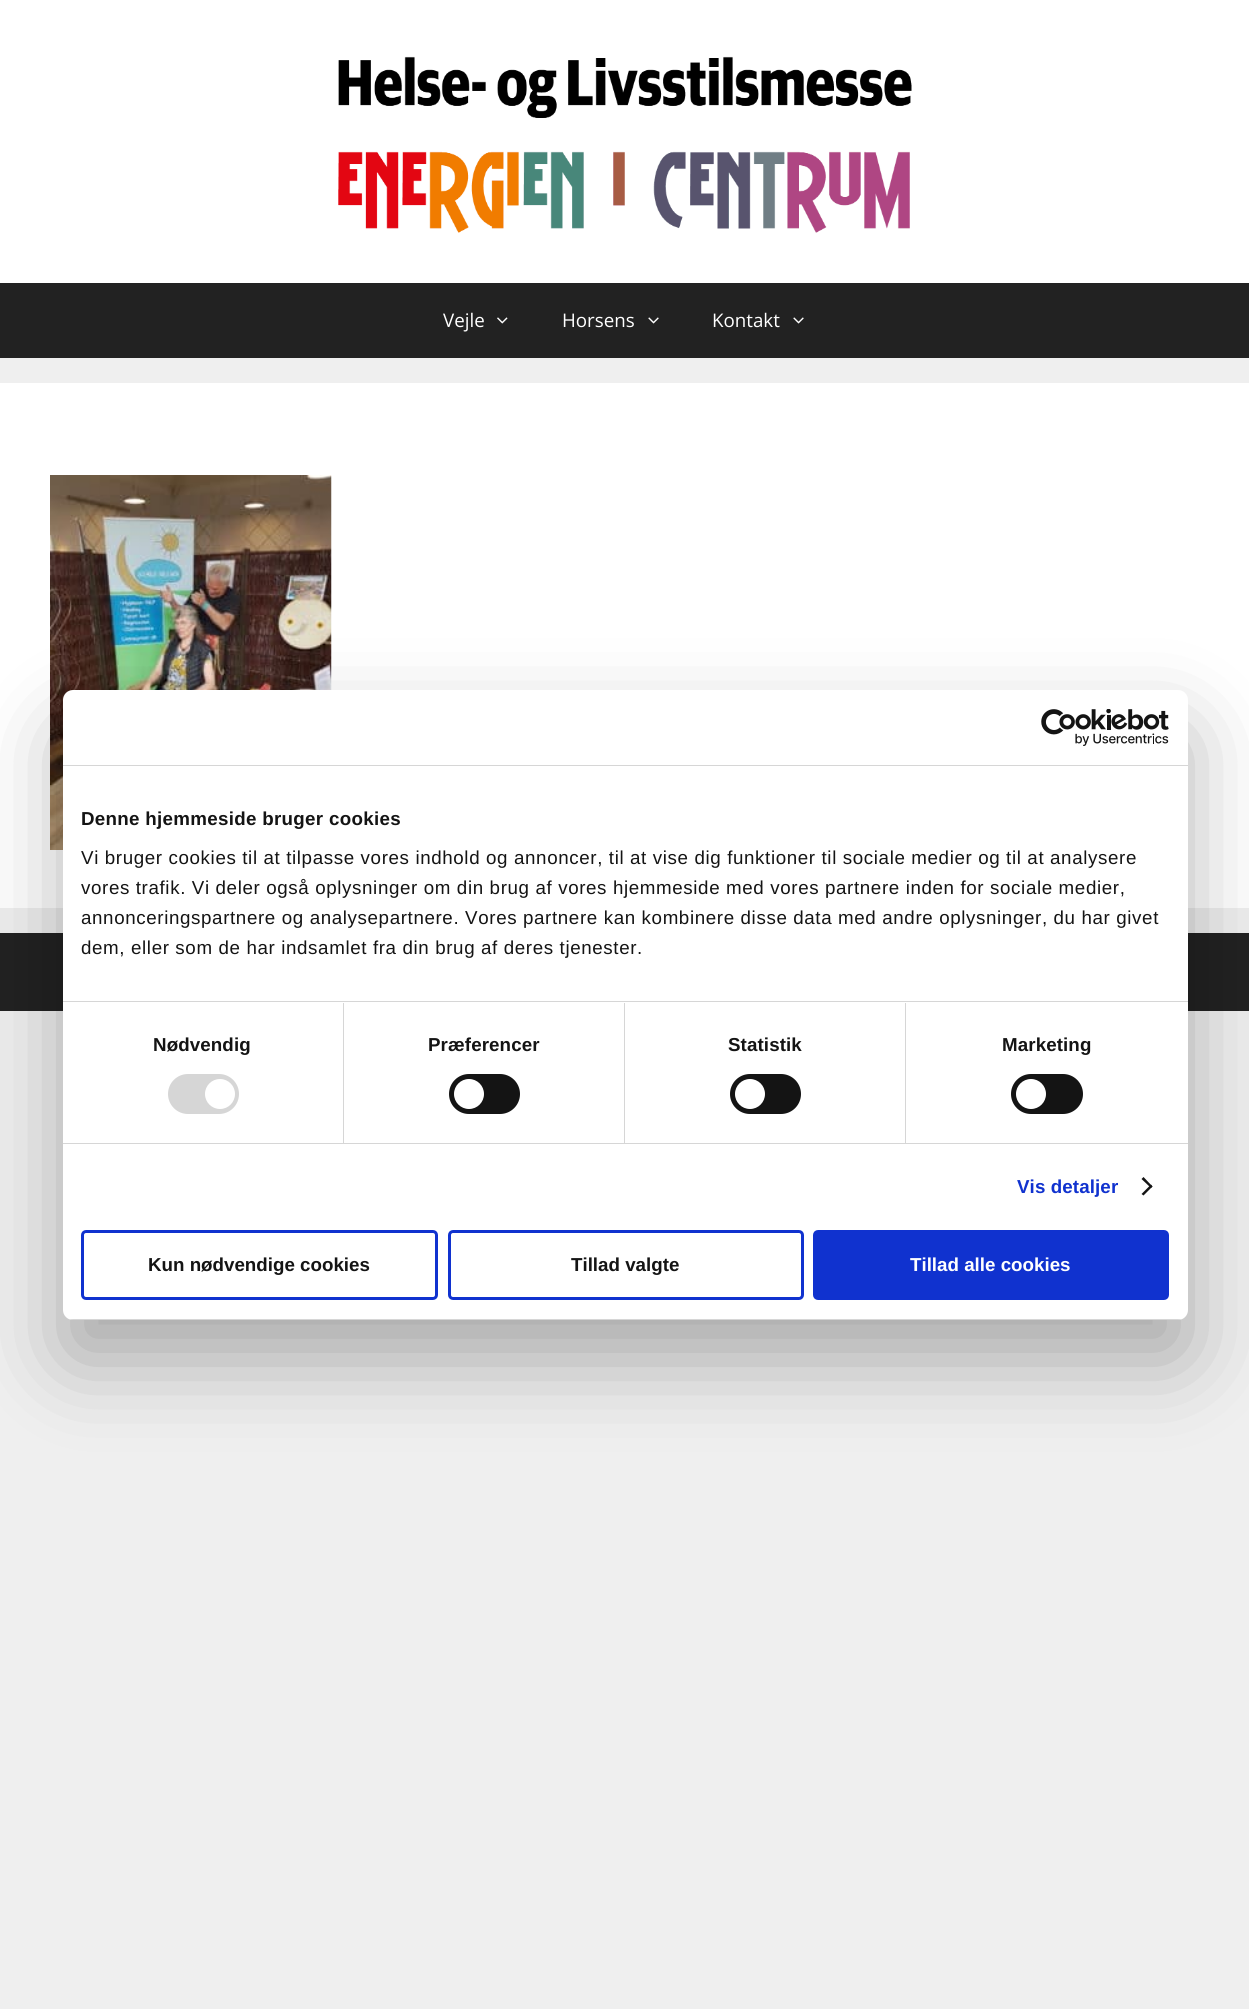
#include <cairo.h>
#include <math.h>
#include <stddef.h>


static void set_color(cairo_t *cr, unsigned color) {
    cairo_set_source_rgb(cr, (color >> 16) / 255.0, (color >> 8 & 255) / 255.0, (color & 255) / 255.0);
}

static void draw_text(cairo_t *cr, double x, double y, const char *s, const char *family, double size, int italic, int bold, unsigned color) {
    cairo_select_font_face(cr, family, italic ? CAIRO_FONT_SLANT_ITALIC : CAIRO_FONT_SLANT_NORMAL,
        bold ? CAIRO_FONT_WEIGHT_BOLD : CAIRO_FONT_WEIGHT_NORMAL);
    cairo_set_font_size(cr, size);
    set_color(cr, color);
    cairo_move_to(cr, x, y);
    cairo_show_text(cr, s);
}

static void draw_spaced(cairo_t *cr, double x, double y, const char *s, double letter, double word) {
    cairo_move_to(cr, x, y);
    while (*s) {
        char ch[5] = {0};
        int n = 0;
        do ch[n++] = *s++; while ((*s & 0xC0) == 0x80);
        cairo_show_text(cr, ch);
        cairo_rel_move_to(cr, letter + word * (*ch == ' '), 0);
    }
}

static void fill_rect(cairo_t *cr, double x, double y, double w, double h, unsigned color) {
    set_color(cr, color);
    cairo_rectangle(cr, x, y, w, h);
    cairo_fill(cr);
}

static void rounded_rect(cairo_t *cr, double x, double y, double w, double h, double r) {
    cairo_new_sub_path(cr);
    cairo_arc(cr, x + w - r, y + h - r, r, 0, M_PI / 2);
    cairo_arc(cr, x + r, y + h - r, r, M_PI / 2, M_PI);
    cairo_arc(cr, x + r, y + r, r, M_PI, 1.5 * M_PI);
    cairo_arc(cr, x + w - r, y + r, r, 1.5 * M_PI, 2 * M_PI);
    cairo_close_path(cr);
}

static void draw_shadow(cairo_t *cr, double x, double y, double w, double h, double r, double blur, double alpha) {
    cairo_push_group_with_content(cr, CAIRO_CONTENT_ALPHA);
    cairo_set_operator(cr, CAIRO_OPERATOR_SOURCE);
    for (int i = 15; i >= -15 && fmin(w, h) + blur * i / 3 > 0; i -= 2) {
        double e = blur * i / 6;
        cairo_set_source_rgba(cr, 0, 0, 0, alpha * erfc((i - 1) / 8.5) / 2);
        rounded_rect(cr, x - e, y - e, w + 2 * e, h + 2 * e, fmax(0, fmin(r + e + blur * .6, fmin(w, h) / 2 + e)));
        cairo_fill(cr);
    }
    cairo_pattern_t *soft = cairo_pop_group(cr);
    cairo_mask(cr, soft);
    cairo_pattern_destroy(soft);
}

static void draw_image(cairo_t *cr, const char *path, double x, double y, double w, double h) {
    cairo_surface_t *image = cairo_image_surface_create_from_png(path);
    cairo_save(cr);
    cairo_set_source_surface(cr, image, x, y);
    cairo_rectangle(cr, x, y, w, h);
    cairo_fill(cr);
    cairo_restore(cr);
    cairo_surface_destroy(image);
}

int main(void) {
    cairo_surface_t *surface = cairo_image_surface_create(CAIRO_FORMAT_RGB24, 1249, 2009);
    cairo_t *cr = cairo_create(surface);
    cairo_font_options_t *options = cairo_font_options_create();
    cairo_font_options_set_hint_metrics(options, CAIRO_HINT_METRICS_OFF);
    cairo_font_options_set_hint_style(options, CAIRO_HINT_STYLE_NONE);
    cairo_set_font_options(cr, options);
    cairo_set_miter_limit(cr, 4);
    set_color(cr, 0xEFEFEF);
    cairo_paint(cr);
    fill_rect(cr, 0, 0, 1249, 283, 0xFFFFFF);
    draw_image(cr, "assets/img1.png", 338, 56, 574, 177);
    fill_rect(cr, 0, 283, 1249, 75, 0x222222);
    draw_text(cr, 443, 327, "Vejle", "Open Sans", 18.75, 0, 0, 0xFFFFFF);
    draw_image(cr, "assets/img2.png", 497, 317, 11, 7);
    draw_text(cr, 562, 327, "Horsens", "Open Sans", 18.75, 0, 0, 0xFFFFFF);
    draw_image(cr, "assets/img3.png", 648, 317, 11, 7);
    draw_text(cr, 712, 327, "Kontakt", "Open Sans", 18.75, 0, 0, 0xFFFFFF);
    draw_image(cr, "assets/img3.png", 793, 317, 11, 7);
    fill_rect(cr, 0, 383, 1249, 525, 0xFFFFFF);
    draw_image(cr, "assets/img4.png", 50, 475, 282, 375);
    fill_rect(cr, 0, 933, 1249, 78, 0x222222);
    set_color(cr, 0x000000);
    draw_shadow(cr, 63, 730, 1125, 630, 10, 42.5, 0.3);
    set_color(cr, 0xFFFFFF);
    rounded_rect(cr, 63, 690, 1125, 630, 10);
    cairo_fill(cr);
    fill_rect(cr, 63, 765, 1125, 1, 0xD6D6D6);
    draw_image(cr, "assets/img5.png", 1041, 709, 128, 37);
    fill_rect(cr, 63, 1001, 1125, 1, 0xD6D6D6);
    cairo_select_font_face(cr, "Liberation Sans", CAIRO_FONT_SLANT_NORMAL, CAIRO_FONT_WEIGHT_BOLD);
    set_color(cr, 0x141414);
    draw_spaced(cr, 81, 825, "Denne hjemmeside bruger cookies", 0.3, 0);
    cairo_select_font_face(cr, "Liberation Sans", CAIRO_FONT_SLANT_NORMAL, CAIRO_FONT_WEIGHT_NORMAL);
    draw_spaced(cr, 81, 864, "Vi bruger cookies til at tilpasse vores indhold og annoncer, til at vise dig funktioner til sociale medier og til at analysere", 0.62, 0);
    draw_spaced(cr, 81, 894, "vores trafik. Vi deler også oplysninger om din brug af vores hjemmeside med vores partnere inden for sociale medier,", 0.62, 0);
    draw_spaced(cr, 81, 924, "annonceringspartnere og analysepartnere. Vores partnere kan kombinere disse data med andre oplysninger, du har givet", 0.62, 0);
    draw_spaced(cr, 81, 954, "dem, eller som de har indsamlet fra din brug af deres tjenester.", 0.62, 0);
    fill_rect(cr, 63, 1143, 1125, 1, 0xD6D6D6);
    fill_rect(cr, 343, 1003, 1, 140, 0xD6D6D6);
    cairo_select_font_face(cr, "Liberation Sans", CAIRO_FONT_SLANT_NORMAL, CAIRO_FONT_WEIGHT_BOLD);
    set_color(cr, 0x141414);
    draw_spaced(cr, 153, 1051, "Nødvendig", 0.1, 0);
    set_color(cr, 0xD6D6D6);
    rounded_rect(cr, 168, 1074, 71, 40, 20);
    cairo_fill(cr);
    set_color(cr, 0xFFFFFF);
    cairo_arc(cr, 220, 1094, 15, 0, 2 * M_PI);
    cairo_fill(cr);
    fill_rect(cr, 624, 1003, 1, 140, 0xD6D6D6);
    set_color(cr, 0x141414);
    draw_spaced(cr, 428, 1051, "Præferencer", 0.1, 0);
    rounded_rect(cr, 449, 1074, 71, 40, 20);
    cairo_fill(cr);
    set_color(cr, 0xFFFFFF);
    cairo_arc(cr, 469, 1094, 15, 0, 2 * M_PI);
    cairo_fill(cr);
    fill_rect(cr, 905, 1003, 1, 140, 0xD6D6D6);
    set_color(cr, 0x141414);
    draw_spaced(cr, 728, 1051, "Statistik", 0.1, 0);
    rounded_rect(cr, 730, 1074, 71, 40, 20);
    cairo_fill(cr);
    set_color(cr, 0xFFFFFF);
    cairo_arc(cr, 750, 1094, 15, 0, 2 * M_PI);
    cairo_fill(cr);
    set_color(cr, 0x141414);
    draw_spaced(cr, 1002, 1051, "Marketing", 0.1, 0);
    rounded_rect(cr, 1011, 1074, 72, 40, 20);
    cairo_fill(cr);
    set_color(cr, 0xFFFFFF);
    cairo_arc(cr, 1031, 1094, 15, 0, 2 * M_PI);
    cairo_fill(cr);
    set_color(cr, 0x1032CF);
    draw_spaced(cr, 1017, 1193, "Vis detaljer", 0.1, 0);
    set_color(cr, 0x141414);
    cairo_new_path(cr);
    cairo_move_to(cr, 1143.5, 1177);
    cairo_line_to(cr, 1152.5, 1186.5);
    cairo_line_to(cr, 1151, 1188);
    cairo_line_to(cr, 1141.5, 1179);
    cairo_close_path(cr);
    cairo_fill(cr);
    cairo_new_path(cr);
    cairo_move_to(cr, 1151, 1184.5);
    cairo_line_to(cr, 1152.5, 1186.5);
    cairo_line_to(cr, 1143.5, 1195.5);
    cairo_line_to(cr, 1141.5, 1194);
    cairo_close_path(cr);
    cairo_fill(cr);
    cairo_save(cr);
    rounded_rect(cr, 63, 690, 1125, 630, 10);
    cairo_clip(cr);
    fill_rect(cr, 63, 1319, 1125, 1, 0xD6D6D6);
    cairo_restore(cr);
    rounded_rect(cr, 82.5, 1231.5, 354, 67, 3.5);
    set_color(cr, 0x1032CF);
    cairo_set_line_width(cr, 3);
    cairo_stroke(cr);
    draw_text(cr, 148, 1271, "Kun nødvendige cookies", "Liberation Sans", 18.75, 0, 1, 0x141414);
    rounded_rect(cr, 449.5, 1231.5, 353, 67, 3.5);
    set_color(cr, 0x1032CF);
    cairo_stroke(cr);
    draw_text(cr, 571, 1271, "Tillad valgte", "Liberation Sans", 18.75, 0, 1, 0x141414);
    set_color(cr, 0x1032CF);
    rounded_rect(cr, 814.5, 1231.5, 353, 67, 3.5);
    cairo_fill_preserve(cr);
    cairo_stroke(cr);
    draw_text(cr, 910, 1271, "Tillad alle cookies", "Liberation Sans", 18.75, 0, 1, 0xFFFFFF);
    cairo_surface_write_to_png(surface, "output.png");
    cairo_font_options_destroy(options);
    cairo_destroy(cr);
    cairo_surface_destroy(surface);
    return 0;
}
